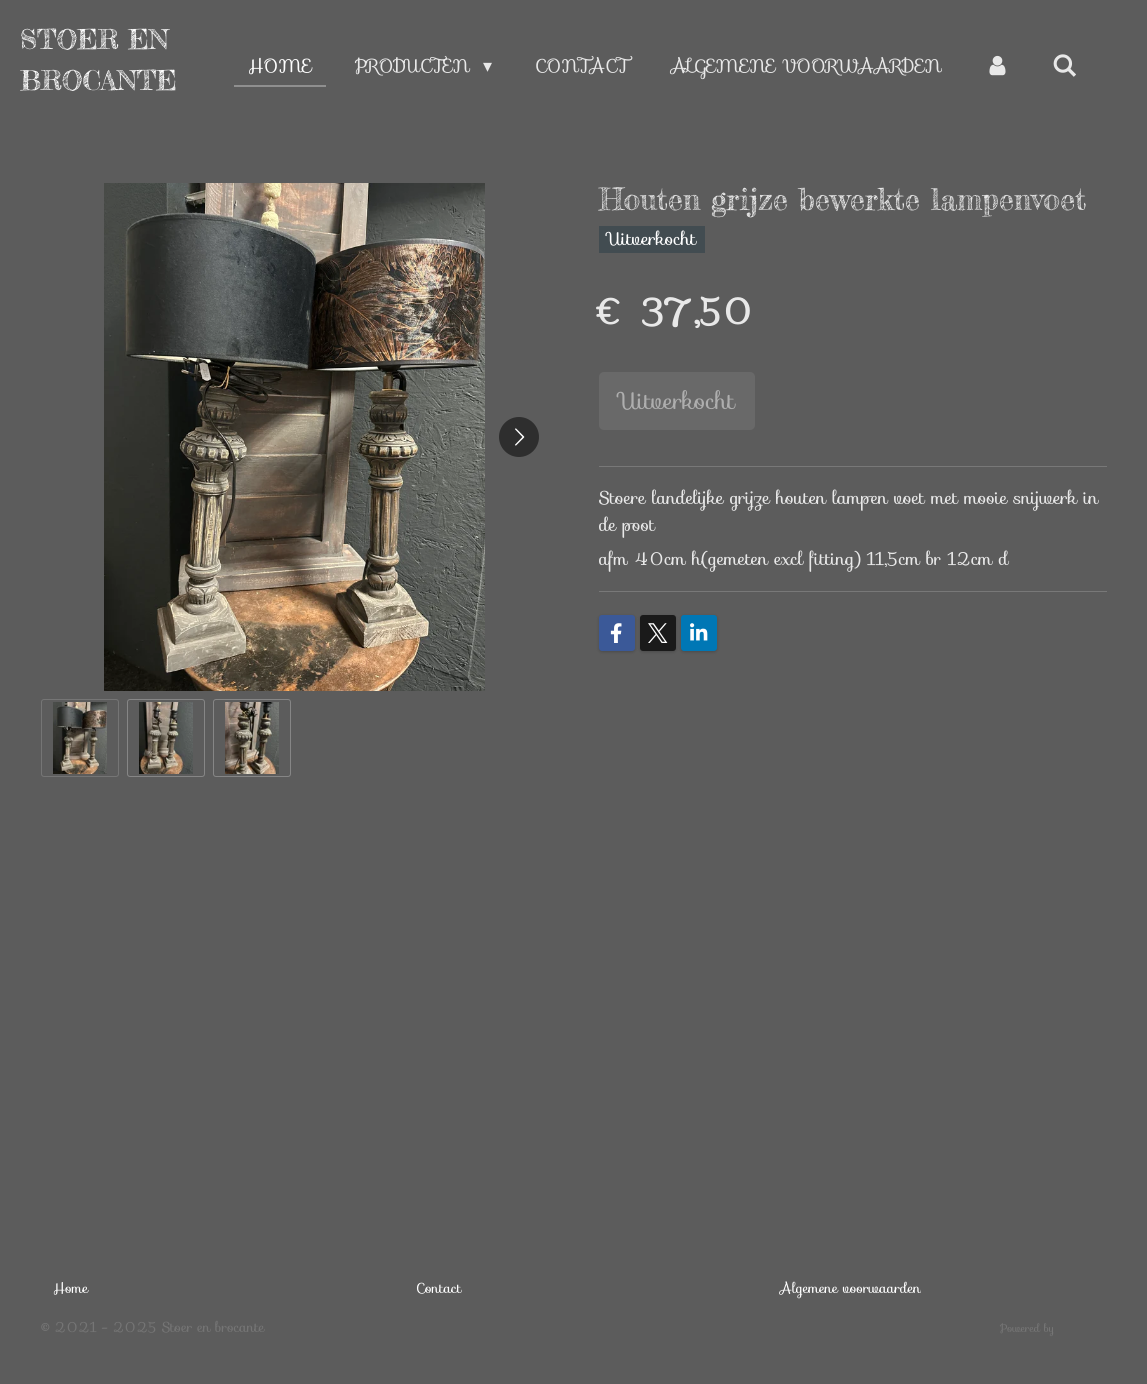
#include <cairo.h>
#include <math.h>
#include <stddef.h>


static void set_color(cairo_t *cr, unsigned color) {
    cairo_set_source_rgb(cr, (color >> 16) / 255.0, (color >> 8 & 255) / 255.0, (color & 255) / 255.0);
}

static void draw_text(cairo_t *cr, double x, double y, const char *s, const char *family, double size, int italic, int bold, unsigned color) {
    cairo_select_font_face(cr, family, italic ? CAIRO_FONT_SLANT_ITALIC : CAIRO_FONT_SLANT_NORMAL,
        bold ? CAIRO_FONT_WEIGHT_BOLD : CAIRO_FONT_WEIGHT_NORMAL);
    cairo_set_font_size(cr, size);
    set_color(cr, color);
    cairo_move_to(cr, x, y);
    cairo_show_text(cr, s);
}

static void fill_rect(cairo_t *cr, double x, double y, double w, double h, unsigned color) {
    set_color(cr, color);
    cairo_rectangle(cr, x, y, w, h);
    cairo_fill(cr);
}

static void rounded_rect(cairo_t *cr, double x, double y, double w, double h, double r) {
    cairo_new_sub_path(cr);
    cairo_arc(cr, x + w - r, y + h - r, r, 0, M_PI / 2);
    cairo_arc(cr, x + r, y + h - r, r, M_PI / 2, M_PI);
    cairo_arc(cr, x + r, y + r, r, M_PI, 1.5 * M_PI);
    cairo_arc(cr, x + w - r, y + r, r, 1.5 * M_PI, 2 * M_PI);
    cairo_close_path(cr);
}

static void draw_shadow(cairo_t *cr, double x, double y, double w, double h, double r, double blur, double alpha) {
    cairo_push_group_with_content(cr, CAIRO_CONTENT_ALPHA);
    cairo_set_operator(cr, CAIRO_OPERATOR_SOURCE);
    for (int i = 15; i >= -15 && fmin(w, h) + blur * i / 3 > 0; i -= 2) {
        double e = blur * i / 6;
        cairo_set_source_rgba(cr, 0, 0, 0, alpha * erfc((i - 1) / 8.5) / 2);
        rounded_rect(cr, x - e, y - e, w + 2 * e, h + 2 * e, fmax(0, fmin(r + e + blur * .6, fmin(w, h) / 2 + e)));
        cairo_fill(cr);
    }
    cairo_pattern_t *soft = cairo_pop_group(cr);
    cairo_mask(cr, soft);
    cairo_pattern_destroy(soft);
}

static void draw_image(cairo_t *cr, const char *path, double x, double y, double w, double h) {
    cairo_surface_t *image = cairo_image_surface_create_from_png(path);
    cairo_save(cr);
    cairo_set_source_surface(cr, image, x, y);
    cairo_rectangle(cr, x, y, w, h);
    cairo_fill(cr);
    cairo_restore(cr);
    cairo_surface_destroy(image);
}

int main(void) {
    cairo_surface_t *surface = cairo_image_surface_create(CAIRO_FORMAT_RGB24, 1147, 1384);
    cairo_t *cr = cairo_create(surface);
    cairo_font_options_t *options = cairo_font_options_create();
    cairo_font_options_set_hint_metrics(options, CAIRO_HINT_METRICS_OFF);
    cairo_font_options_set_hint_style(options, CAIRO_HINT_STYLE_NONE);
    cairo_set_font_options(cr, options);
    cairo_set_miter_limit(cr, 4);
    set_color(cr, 0x5C5C5C);
    cairo_paint(cr);
    draw_text(cr, 20, 49, "STOER EN", "Fredericka the Great", 27, 0, 0, 0xFFFFFF);
    draw_text(cr, 20, 90, "BROCANTE", "Fredericka the Great", 27, 0, 0, 0xFFFFFF);
    fill_rect(cr, 234, 85, 92, 2, 0x8F8F8F);
    draw_text(cr, 248, 72, "HOME", "Sofia", 18, 0, 0, 0xFFFFFF);
    draw_text(cr, 355, 72, "PRODUCTEN", "Sofia", 18, 0, 0, 0xE8E8E8);
    draw_text(cr, 483, 72, "▾", "DejaVu Sans", 18, 0, 0, 0xE8E8E8);
    draw_text(cr, 535, 72, "CONTACT", "Sofia", 18, 0, 0, 0xE8E8E8);
    draw_text(cr, 671, 72, "ALGEMENE VOORWAARDEN", "Sofia", 18, 0, 0, 0xE8E8E8);
    draw_image(cr, "assets/img1.png", 989, 55, 17, 21);
    draw_image(cr, "assets/img2.png", 1053, 54, 23, 23);
    draw_image(cr, "assets/img3.png", 104, 183, 381, 508);
    set_color(cr, 0x2E2E2E);
    cairo_arc(cr, 519, 437, 20, 0, 2 * M_PI);
    cairo_fill(cr);
    draw_image(cr, "assets/img4.png", 515, 428, 10, 18);
    rounded_rect(cr, 41.5, 699.5, 77, 77, 2.5);
    set_color(cr, 0x757575);
    cairo_set_line_width(cr, 1);
    cairo_stroke(cr);
    draw_image(cr, "assets/img5.png", 53, 702, 54, 72);
    rounded_rect(cr, 127.5, 699.5, 77, 77, 2.5);
    set_color(cr, 0x868686);
    cairo_stroke(cr);
    draw_image(cr, "assets/img6.png", 139, 702, 54, 72);
    rounded_rect(cr, 213.5, 699.5, 77, 77, 2.5);
    cairo_stroke(cr);
    draw_image(cr, "assets/img7.png", 225, 702, 54, 72);
    draw_text(cr, 599, 210, "Houten grijze bewerkte lampenvoet", "Fredericka the Great", 30, 0, 0, 0xE8E8E8);
    fill_rect(cr, 599, 226, 106, 27, 0x424C51);
    draw_text(cr, 608, 245, "Uitverkocht", "Sofia", 18, 0, 0, 0xFFFFFF);
    draw_text(cr, 599, 324, "€ 37,50", "Sofia", 36, 0, 1, 0xE8E8E8);
    set_color(cr, 0x696969);
    rounded_rect(cr, 599, 372, 156, 58, 5);
    cairo_fill(cr);
    draw_text(cr, 620, 409, "Uitverkocht", "Sofia", 23.5, 0, 0, 0xAEAEAE);
    fill_rect(cr, 599, 466, 508, 1, 0x787878);
    draw_text(cr, 599, 504, "Stoere landelijke grijze houten lampen voet met mooie snijwerk in", "Sofia", 18, 0, 0, 0xE8E8E8);
    draw_text(cr, 599, 531, "de poot", "Sofia", 18, 0, 0, 0xE8E8E8);
    draw_text(cr, 599, 565, "afm 40cm h(gemeten excl fitting) 11,5cm br 12cm d", "Sofia", 18, 0, 0, 0xE8E8E8);
    fill_rect(cr, 599, 591, 508, 1, 0x787878);
    set_color(cr, 0x000000);
    draw_shadow(cr, 599, 616, 36, 36, 3, 1.5, 0.2);
    set_color(cr, 0x3B5998);
    rounded_rect(cr, 599, 615, 36, 36, 3);
    cairo_fill(cr);
    draw_image(cr, "assets/img8.png", 610, 623, 12, 20);
    set_color(cr, 0x000000);
    draw_shadow(cr, 640, 616, 36, 36, 3, 1.5, 0.2);
    set_color(cr, 0x1A1A1A);
    rounded_rect(cr, 640, 615, 36, 36, 3);
    cairo_fill(cr);
    draw_image(cr, "assets/img9.png", 648, 623, 20, 20);
    set_color(cr, 0x000000);
    draw_shadow(cr, 681, 616, 36, 36, 3, 1.5, 0.2);
    set_color(cr, 0x0077B5);
    rounded_rect(cr, 681, 615, 36, 36, 3);
    cairo_fill(cr);
    draw_image(cr, "assets/img10.png", 690, 623, 18, 18);
    draw_text(cr, 53, 1293, "Home", "Sofia", 14, 0, 0, 0xFFFFFF);
    draw_text(cr, 416, 1293, "Contact", "Sofia", 14, 0, 0, 0xFFFFFF);
    draw_text(cr, 780, 1293, "Algemene voorwaarden", "Sofia", 14, 0, 0, 0xFFFFFF);
    draw_text(cr, 41, 1332, "© 2021 - 2025 Stoer en brocante", "Sofia", 14, 0, 0, 0x757575);
    draw_text(cr, 1000, 1332, "Powered by", "Sofia", 11, 0, 0, 0x757575);
    cairo_surface_write_to_png(surface, "output.png");
    cairo_font_options_destroy(options);
    cairo_destroy(cr);
    cairo_surface_destroy(surface);
    return 0;
}
